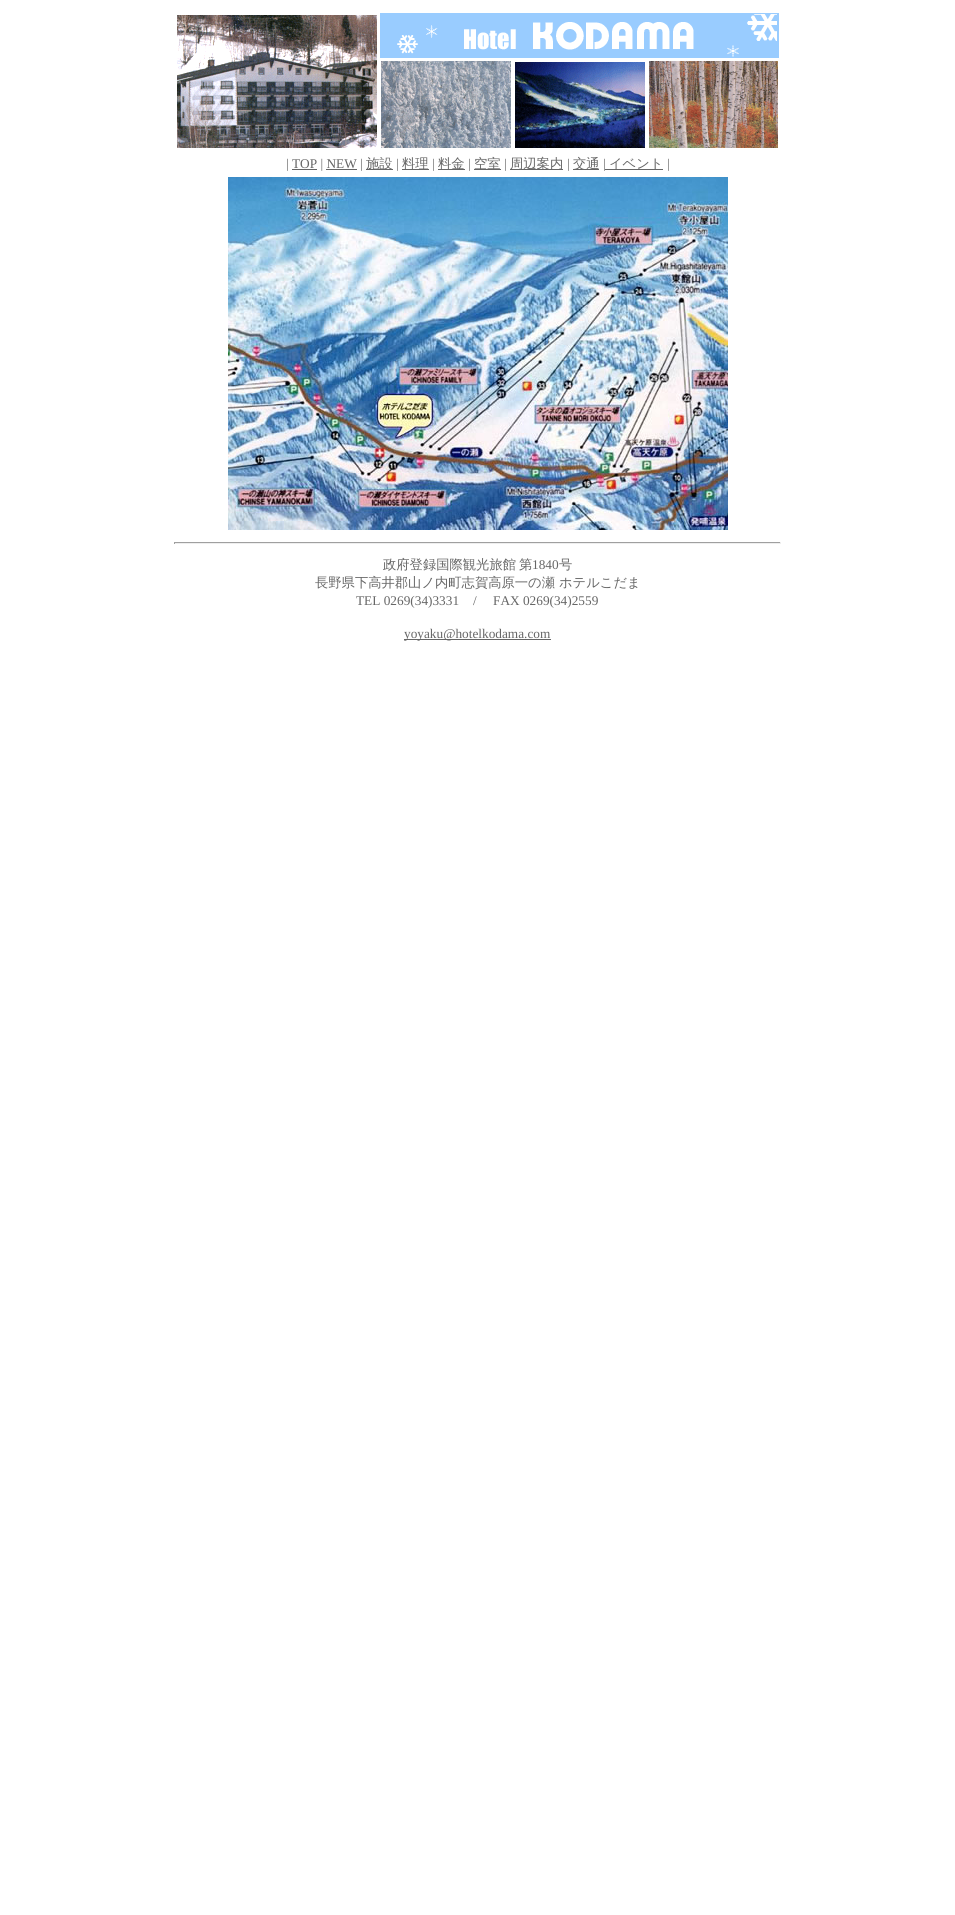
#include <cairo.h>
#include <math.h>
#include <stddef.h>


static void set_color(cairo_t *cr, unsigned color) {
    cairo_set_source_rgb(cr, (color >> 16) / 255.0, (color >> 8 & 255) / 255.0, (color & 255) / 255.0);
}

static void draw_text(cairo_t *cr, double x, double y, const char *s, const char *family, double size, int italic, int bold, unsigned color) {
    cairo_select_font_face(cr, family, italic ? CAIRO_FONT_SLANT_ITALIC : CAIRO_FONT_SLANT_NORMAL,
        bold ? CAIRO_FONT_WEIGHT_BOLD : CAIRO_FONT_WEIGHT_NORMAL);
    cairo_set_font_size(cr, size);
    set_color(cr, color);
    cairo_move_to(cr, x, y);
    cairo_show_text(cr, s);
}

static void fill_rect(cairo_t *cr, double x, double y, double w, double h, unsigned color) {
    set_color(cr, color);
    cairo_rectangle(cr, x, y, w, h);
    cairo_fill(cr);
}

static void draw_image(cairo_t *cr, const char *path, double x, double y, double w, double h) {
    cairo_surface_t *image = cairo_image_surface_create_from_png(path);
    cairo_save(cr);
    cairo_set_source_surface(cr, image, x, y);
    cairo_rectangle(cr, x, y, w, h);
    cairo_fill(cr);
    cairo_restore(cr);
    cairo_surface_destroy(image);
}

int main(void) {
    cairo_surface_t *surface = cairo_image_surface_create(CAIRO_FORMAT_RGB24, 955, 1915);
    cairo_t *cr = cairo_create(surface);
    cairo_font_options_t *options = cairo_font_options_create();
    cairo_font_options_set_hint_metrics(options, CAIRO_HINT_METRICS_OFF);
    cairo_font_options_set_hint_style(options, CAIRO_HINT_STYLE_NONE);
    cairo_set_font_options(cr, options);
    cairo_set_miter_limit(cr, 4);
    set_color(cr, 0xFFFFFF);
    cairo_paint(cr);
    draw_image(cr, "assets/img1.png", 177, 15, 200, 133);
    fill_rect(cr, 380, 13, 399, 45, 0x99CCFF);
    draw_image(cr, "assets/img2.png", 397, 14, 380, 43);
    draw_image(cr, "assets/img3.png", 381, 61, 130, 87);
    draw_image(cr, "assets/img4.png", 515, 62, 130, 86);
    draw_image(cr, "assets/img5.png", 649, 61, 129, 87);
    draw_text(cr, 286, 168, "| TOP | NEW |", "Liberation Serif", 13.3, 0, 0, 0x666666);
    fill_rect(cr, 366, 169, 27, 1, 0x666666);
    draw_text(cr, 366, 168, "施設", "WenQuanYi Zen Hei Medium", 13.3, 0, 0, 0x666666);
    draw_text(cr, 396, 168, "|", "Liberation Serif", 13.3, 0, 0, 0x666666);
    fill_rect(cr, 402, 169, 27, 1, 0x666666);
    draw_text(cr, 402, 168, "料理", "WenQuanYi Zen Hei Medium", 13.3, 0, 0, 0x666666);
    draw_text(cr, 432, 168, "|", "Liberation Serif", 13.3, 0, 0, 0x666666);
    fill_rect(cr, 438, 169, 27, 1, 0x666666);
    draw_text(cr, 438, 168, "料金", "WenQuanYi Zen Hei Medium", 13.3, 0, 0, 0x666666);
    draw_text(cr, 468, 168, "|", "Liberation Serif", 13.3, 0, 0, 0x666666);
    fill_rect(cr, 474, 169, 27, 1, 0x666666);
    draw_text(cr, 474, 168, "空室", "WenQuanYi Zen Hei Medium", 13.3, 0, 0, 0x666666);
    draw_text(cr, 504, 168, "|", "Liberation Serif", 13.3, 0, 0, 0x666666);
    fill_rect(cr, 510, 169, 53, 1, 0x666666);
    draw_text(cr, 510, 168, "周辺案内", "WenQuanYi Zen Hei Medium", 13.3, 0, 0, 0x666666);
    draw_text(cr, 567, 168, "|", "Liberation Serif", 13.3, 0, 0, 0x666666);
    fill_rect(cr, 573, 169, 26, 1, 0x666666);
    draw_text(cr, 573, 168, "交通", "WenQuanYi Zen Hei Medium", 13.3, 0, 0, 0x666666);
    draw_text(cr, 603, 168, "|", "Liberation Serif", 13.3, 0, 0, 0x666666);
    fill_rect(cr, 605, 169, 58, 1, 0x666666);
    draw_text(cr, 609, 168, "イベント", "WenQuanYi Zen Hei Medium", 13.3, 0, 0, 0x666666);
    draw_text(cr, 667, 168, "|", "Liberation Serif", 13.3, 0, 0, 0x666666);
    fill_rect(cr, 292, 169, 25, 1, 0x666666);
    fill_rect(cr, 326, 169, 31, 1, 0x666666);
    draw_image(cr, "assets/img6.png", 228, 177, 500, 353);
    fill_rect(cr, 174, 542, 607, 1, 0x9F9F9F);
    fill_rect(cr, 780, 542, 1, 2, 0xEEEEEE);
    fill_rect(cr, 174, 543, 607, 1, 0xEEEEEE);
    fill_rect(cr, 174, 542, 1, 2, 0x9F9F9F);
    draw_text(cr, 383, 569, "政府登録国際観光旅館", "WenQuanYi Zen Hei Medium", 13.3, 0, 0, 0x666666);
    draw_text(cr, 519, 569, "第", "WenQuanYi Zen Hei Medium", 13.3, 0, 0, 0x666666);
    draw_text(cr, 532, 569, "1840", "Liberation Serif", 13.3, 0, 0, 0x666666);
    draw_text(cr, 559, 569, "号", "WenQuanYi Zen Hei Medium", 13.3, 0, 0, 0x666666);
    draw_text(cr, 315, 587, "長野県下高井郡山ノ内町志賀高原一の瀬", "WenQuanYi Zen Hei Medium", 13.3, 0, 0, 0x666666);
    draw_text(cr, 559, 587, "ホテルこだま", "WenQuanYi Zen Hei Medium", 13.3, 0, 0, 0x666666);
    draw_text(cr, 356, 605, "TEL 0269(34)3331", "Liberation Serif", 13.3, 0, 0, 0x666666);
    draw_text(cr, 473, 605, "/", "Liberation Serif", 13.3, 0, 0, 0x666666);
    draw_text(cr, 493, 605, "FAX 0269(34)2559", "Liberation Serif", 13.3, 0, 0, 0x666666);
    fill_rect(cr, 404, 639, 147, 1, 0x666666);
    draw_text(cr, 404, 638, "yoyaku@hotelkodama.com", "Liberation Serif", 13.3, 0, 0, 0x666666);
    cairo_surface_write_to_png(surface, "output.png");
    cairo_font_options_destroy(options);
    cairo_destroy(cr);
    cairo_surface_destroy(surface);
    return 0;
}
